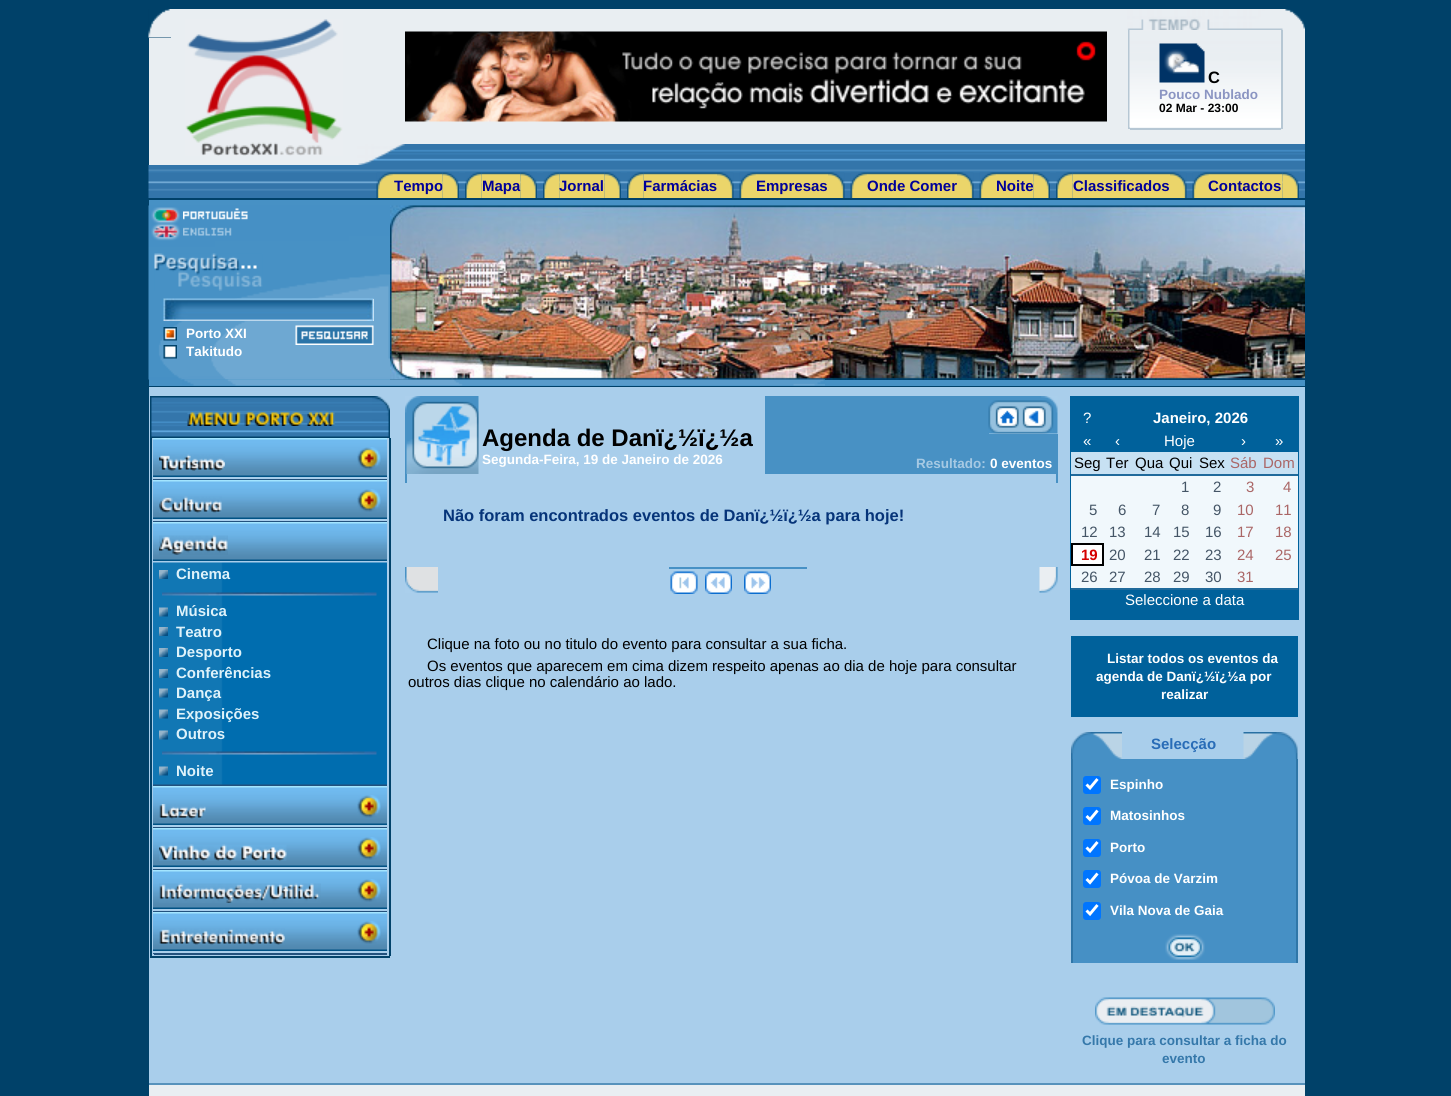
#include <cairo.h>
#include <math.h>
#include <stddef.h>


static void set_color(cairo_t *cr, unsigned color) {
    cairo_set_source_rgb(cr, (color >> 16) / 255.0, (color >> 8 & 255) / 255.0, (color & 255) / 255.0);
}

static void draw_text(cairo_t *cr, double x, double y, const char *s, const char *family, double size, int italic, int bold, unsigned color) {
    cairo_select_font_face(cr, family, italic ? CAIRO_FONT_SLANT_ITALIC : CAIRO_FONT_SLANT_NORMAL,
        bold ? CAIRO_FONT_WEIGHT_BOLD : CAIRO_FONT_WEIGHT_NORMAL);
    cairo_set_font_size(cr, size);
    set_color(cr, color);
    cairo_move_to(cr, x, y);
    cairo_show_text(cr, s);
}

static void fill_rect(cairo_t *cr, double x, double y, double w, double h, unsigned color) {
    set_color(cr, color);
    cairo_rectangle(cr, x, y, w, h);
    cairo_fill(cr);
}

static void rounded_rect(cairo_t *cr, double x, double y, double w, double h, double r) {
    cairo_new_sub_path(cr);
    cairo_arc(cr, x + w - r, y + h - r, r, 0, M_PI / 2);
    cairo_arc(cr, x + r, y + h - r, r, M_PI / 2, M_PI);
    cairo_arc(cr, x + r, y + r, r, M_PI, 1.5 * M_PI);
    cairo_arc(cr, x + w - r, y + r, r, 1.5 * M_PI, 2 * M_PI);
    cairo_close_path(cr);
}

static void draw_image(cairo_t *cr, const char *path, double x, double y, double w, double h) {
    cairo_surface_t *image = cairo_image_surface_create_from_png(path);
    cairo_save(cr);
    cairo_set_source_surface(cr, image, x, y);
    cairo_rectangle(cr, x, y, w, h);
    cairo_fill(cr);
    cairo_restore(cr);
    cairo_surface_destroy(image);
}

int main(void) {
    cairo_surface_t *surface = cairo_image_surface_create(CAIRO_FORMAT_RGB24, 1451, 1096);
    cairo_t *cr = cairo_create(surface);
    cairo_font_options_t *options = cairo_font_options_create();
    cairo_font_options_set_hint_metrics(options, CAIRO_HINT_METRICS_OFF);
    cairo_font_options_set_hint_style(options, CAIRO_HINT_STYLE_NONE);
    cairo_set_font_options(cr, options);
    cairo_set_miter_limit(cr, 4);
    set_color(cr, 0x004169);
    cairo_paint(cr);
    fill_rect(cr, 149, 38, 22, 127, 0xE9EEF2);
    draw_image(cr, "assets/img1.png", 148, 9, 23, 29);
    fill_rect(cr, 171, 9, 186, 156, 0xE9EEF2);
    draw_image(cr, "assets/img2.png", 185, 19, 158, 137);
    fill_rect(cr, 357, 9, 948, 135, 0xE9EEF2);
    draw_image(cr, "assets/img3.png", 405, 31, 702, 91);
    draw_image(cr, "assets/img4.png", 1127, 9, 178, 21);
    fill_rect(cr, 1128, 30, 2, 99, 0xB6C7D4);
    draw_image(cr, "assets/img5.png", 1129, 30, 152, 98);
    draw_image(cr, "assets/img6.png", 1159, 43, 46, 40);
    draw_text(cr, 1208, 83, "C", "Liberation Sans", 16.5, 0, 1, 0x000000);
    draw_text(cr, 1159, 99, "Pouco Nublado", "Liberation Sans", 13.5, 0, 1, 0x8B95C2);
    draw_text(cr, 1159, 112, "02 Mar - 23:00", "Liberation Sans", 12, 0, 1, 0x000000);
    fill_rect(cr, 1281, 30, 2, 99, 0xB6C7D4);
    fill_rect(cr, 1130, 128, 151, 2, 0xB6C7D4);
    draw_image(cr, "assets/img7.png", 357, 144, 48, 21);
    draw_image(cr, "assets/img8.png", 405, 144, 714, 21);
    draw_image(cr, "assets/img9.png", 1119, 144, 186, 21);
    draw_image(cr, "assets/img10.png", 148, 165, 1157, 33);
    draw_image(cr, "assets/img11.png", 376, 172, 17, 26);
    draw_image(cr, "assets/img12.png", 393, 172, 50, 26);
    draw_text(cr, 394, 191, "Tempo", "Liberation Sans", 15, 0, 1, 0x000099);
    draw_image(cr, "assets/img13.png", 442, 172, 17, 26);
    draw_image(cr, "assets/img15.png", 481, 172, 40, 26);
    draw_image(cr, "assets/img14.png", 465, 172, 17, 26);
    draw_text(cr, 482, 191, "Mapa", "Liberation Sans", 15, 0, 1, 0x000099);
    draw_image(cr, "assets/img16.png", 520, 172, 17, 26);
    draw_image(cr, "assets/img18.png", 559, 172, 46, 26);
    draw_image(cr, "assets/img17.png", 543, 172, 17, 26);
    draw_text(cr, 559, 191, "Jornal", "Liberation Sans", 15, 0, 1, 0x000099);
    draw_image(cr, "assets/img19.png", 604, 172, 17, 26);
    draw_image(cr, "assets/img20.png", 643, 172, 74, 26);
    draw_image(cr, "assets/img17.png", 627, 172, 17, 26);
    draw_text(cr, 643, 191, "Farmácias", "Liberation Sans", 15, 0, 1, 0x000099);
    draw_image(cr, "assets/img21.png", 717, 172, 17, 26);
    draw_image(cr, "assets/img11.png", 739, 172, 17, 26);
    draw_image(cr, "assets/img22.png", 756, 172, 72, 26);
    draw_text(cr, 756, 191, "Empresas", "Liberation Sans", 15, 0, 1, 0x000099);
    draw_image(cr, "assets/img23.png", 828, 172, 17, 26);
    draw_image(cr, "assets/img24.png", 850, 172, 17, 26);
    draw_image(cr, "assets/img25.png", 867, 172, 90, 26);
    draw_text(cr, 867, 191, "Onde Comer", "Liberation Sans", 15, 0, 1, 0x000099);
    draw_image(cr, "assets/img23.png", 957, 172, 17, 26);
    draw_image(cr, "assets/img24.png", 979, 172, 17, 26);
    draw_image(cr, "assets/img26.png", 996, 172, 38, 26);
    draw_text(cr, 996, 191, "Noite", "Liberation Sans", 15, 0, 1, 0x000099);
    draw_image(cr, "assets/img27.png", 1033, 172, 17, 26);
    draw_image(cr, "assets/img28.png", 1072, 172, 98, 26);
    draw_image(cr, "assets/img14.png", 1056, 172, 17, 26);
    draw_text(cr, 1073, 191, "Classificados", "Liberation Sans", 15, 0, 1, 0x000099);
    draw_image(cr, "assets/img21.png", 1170, 172, 17, 26);
    draw_image(cr, "assets/img11.png", 1192, 172, 17, 26);
    draw_image(cr, "assets/img29.png", 1209, 172, 74, 26);
    draw_text(cr, 1208, 191, "Contactos", "Liberation Sans", 15, 0, 1, 0x000099);
    draw_image(cr, "assets/img19.png", 1282, 172, 17, 26);
    fill_rect(cr, 149, 200, 1156, 6, 0x4791C5);
    fill_rect(cr, 149, 379, 241, 1, 0x4791C5);
    draw_image(cr, "assets/img30.png", 148, 205, 242, 175);
    draw_image(cr, "assets/img31.png", 151, 207, 29, 17);
    draw_image(cr, "assets/img32.png", 183, 208, 65, 12);
    draw_image(cr, "assets/img33.png", 151, 223, 29, 18);
    draw_image(cr, "assets/img34.png", 183, 227, 49, 9);
    draw_image(cr, "assets/img35.png", 154, 253, 109, 38);
    fill_rect(cr, 373, 299, 1, 22, 0xFFFFFF);
    draw_image(cr, "assets/img36.png", 163, 298, 211, 23);
    draw_image(cr, "assets/img37.png", 163, 327, 14, 14);
    draw_text(cr, 186, 338, "Porto XXI", "Liberation Sans", 13.5, 0, 1, 0xFFFFFF);
    draw_image(cr, "assets/img38.png", 163, 345, 14, 14);
    draw_text(cr, 186, 356, "Takitudo", "Liberation Sans", 13.5, 0, 1, 0xFFFFFF);
    draw_image(cr, "assets/img39.png", 295, 325, 79, 20);
    draw_image(cr, "assets/img40.png", 390, 205, 915, 175);
    fill_rect(cr, 149, 380, 1156, 6, 0x4791C5);
    draw_image(cr, "assets/img41.png", 182, 379, 643, 7);
    fill_rect(cr, 149, 387, 1156, 696, 0xA9CEEB);
    fill_rect(cr, 150, 396, 2, 560, 0x02436B);
    draw_image(cr, "assets/img42.png", 151, 396, 221, 42);
    draw_image(cr, "assets/img43.png", 187, 412, 148, 14);
    draw_image(cr, "assets/img44.png", 372, 396, 18, 42);
    draw_image(cr, "assets/img45.png", 153, 438, 198, 39);
    draw_image(cr, "assets/img46.png", 159, 454, 66, 17);
    draw_image(cr, "assets/img47.png", 351, 438, 36, 39);
    draw_image(cr, "assets/img48.png", 357, 447, 24, 23);
    fill_rect(cr, 389, 438, 2, 518, 0x02436B);
    fill_rect(cr, 153, 479, 234, 1, 0x22517D);
    draw_image(cr, "assets/img45.png", 153, 480, 198, 39);
    draw_image(cr, "assets/img49.png", 159, 496, 63, 17);
    draw_image(cr, "assets/img47.png", 351, 480, 36, 39);
    draw_image(cr, "assets/img48.png", 357, 489, 24, 23);
    fill_rect(cr, 153, 521, 234, 1, 0x22517D);
    draw_image(cr, "assets/img45.png", 153, 522, 198, 39);
    draw_image(cr, "assets/img50.png", 159, 535, 69, 20);
    draw_image(cr, "assets/img47.png", 351, 522, 36, 39);
    fill_rect(cr, 153, 784, 234, 2, 0x22517D);
    draw_image(cr, "assets/img51.png", 153, 562, 234, 223);
    draw_image(cr, "assets/img52.png", 159, 570, 9, 9);
    draw_text(cr, 176, 579, "Cinema", "Liberation Sans", 15, 0, 1, 0xDEF2FA);
    draw_image(cr, "assets/img53.png", 162, 592, 215, 4);
    draw_image(cr, "assets/img54.png", 159, 607, 9, 10);
    draw_text(cr, 176, 616, "Música", "Liberation Sans", 15, 0, 1, 0xDEF2FA);
    draw_image(cr, "assets/img52.png", 159, 627, 9, 9);
    draw_text(cr, 176, 637, "Teatro", "Liberation Sans", 15, 0, 1, 0xDEF2FA);
    draw_image(cr, "assets/img52.png", 159, 648, 9, 9);
    draw_text(cr, 176, 657, "Desporto", "Liberation Sans", 15, 0, 1, 0xDEF2FA);
    draw_image(cr, "assets/img52.png", 159, 669, 9, 9);
    draw_text(cr, 176, 678, "Conferências", "Liberation Sans", 15, 0, 1, 0xDEF2FA);
    draw_image(cr, "assets/img54.png", 159, 688, 9, 10);
    draw_text(cr, 176, 698, "Dança", "Liberation Sans", 15, 0, 1, 0xDEF2FA);
    draw_image(cr, "assets/img54.png", 159, 709, 9, 10);
    draw_text(cr, 176, 719, "Exposições", "Liberation Sans", 15, 0, 1, 0xDEF2FA);
    draw_image(cr, "assets/img54.png", 159, 730, 9, 10);
    draw_text(cr, 176, 739, "Outros", "Liberation Sans", 15, 0, 1, 0xDEF2FA);
    draw_image(cr, "assets/img53.png", 162, 751, 215, 4);
    draw_image(cr, "assets/img54.png", 159, 766, 9, 10);
    draw_text(cr, 176, 776, "Noite", "Liberation Sans", 15, 0, 1, 0xDEF2FA);
    draw_image(cr, "assets/img45.png", 153, 786, 198, 39);
    draw_image(cr, "assets/img55.png", 159, 804, 47, 15);
    draw_image(cr, "assets/img47.png", 351, 786, 36, 39);
    draw_image(cr, "assets/img48.png", 357, 795, 24, 23);
    fill_rect(cr, 153, 827, 234, 1, 0x22517D);
    draw_image(cr, "assets/img45.png", 153, 828, 198, 39);
    draw_image(cr, "assets/img56.png", 159, 844, 128, 17);
    draw_image(cr, "assets/img47.png", 351, 828, 36, 39);
    draw_image(cr, "assets/img48.png", 357, 837, 24, 23);
    fill_rect(cr, 153, 869, 234, 1, 0x22517D);
    draw_image(cr, "assets/img45.png", 153, 870, 198, 39);
    draw_image(cr, "assets/img57.png", 159, 883, 162, 20);
    draw_image(cr, "assets/img47.png", 351, 870, 36, 39);
    draw_image(cr, "assets/img48.png", 357, 879, 24, 23);
    fill_rect(cr, 153, 911, 234, 1, 0x22517D);
    draw_image(cr, "assets/img45.png", 153, 912, 198, 39);
    draw_image(cr, "assets/img58.png", 159, 928, 126, 17);
    draw_image(cr, "assets/img47.png", 351, 912, 36, 39);
    draw_image(cr, "assets/img48.png", 357, 921, 24, 23);
    fill_rect(cr, 153, 953, 234, 2, 0x22517D);
    fill_rect(cr, 152, 954, 2, 1, 0xA9CEEB);
    fill_rect(cr, 150, 956, 240, 2, 0x02436B);
    draw_image(cr, "assets/img59.png", 405, 396, 74, 78);
    fill_rect(cr, 765, 396, 224, 38, 0x4891C4);
    draw_image(cr, "assets/img60.png", 988, 396, 70, 38);
    draw_text(cr, 482, 446, "Agenda de Danï¿½ï¿½a", "Liberation Sans", 24, 0, 1, 0x000000);
    draw_text(cr, 482, 464, "Segunda-Feira, 19 de Janeiro de 2026", "Liberation Sans", 13.5, 0, 1, 0xFFFFFF);
    fill_rect(cr, 765, 434, 293, 40, 0x4891C4);
    draw_text(cr, 916, 468, "Resultado:", "Liberation Sans", 13.5, 0, 1, 0xA6C9E3);
    draw_text(cr, 990, 468, "0 eventos", "Liberation Sans", 13.5, 0, 1, 0xFFFFFF);
    fill_rect(cr, 405, 474, 2, 9, 0x4891C4);
    fill_rect(cr, 1056, 474, 2, 9, 0x4891C4);
    draw_text(cr, 443, 521, "Não foram encontrados eventos de Danï¿½ï¿½a para hoje!", "Liberation Sans", 16.5, 0, 1, 0x063479);
    draw_image(cr, "assets/img61.png", 405, 567, 33, 26);
    fill_rect(cr, 669, 567, 138, 2, 0x4791C5);
    draw_image(cr, "assets/img62.png", 1039, 567, 19, 26);
    draw_image(cr, "assets/img63.png", 670, 571, 28, 23);
    draw_image(cr, "assets/img64.png", 705, 571, 27, 23);
    draw_image(cr, "assets/img65.png", 744, 571, 27, 23);
    draw_text(cr, 427, 649, "Clique na foto ou no titulo do evento para consultar a sua ficha.", "Liberation Sans", 15, 0, 0, 0x000000);
    draw_text(cr, 427, 671, "Os eventos que aparecem em cima dizem respeito apenas ao dia de hoje para consultar", "Liberation Sans", 15, 0, 0, 0x000000);
    draw_text(cr, 408, 687, "outros dias clique no calendário ao lado.", "Liberation Sans", 15, 0, 0, 0x000000);
    fill_rect(cr, 1070, 396, 229, 213, 0x00619B);
    fill_rect(cr, 1071, 476, 227, 112, 0xF1F8FC);
    draw_text(cr, 1083, 423, "?", "Liberation Sans", 15, 0, 0, 0xFFFFFF);
    draw_text(cr, 1153, 423, "Janeiro, 2026", "Liberation Sans", 15, 0, 1, 0xFFFFFF);
    draw_text(cr, 1083, 446, "«", "Liberation Sans", 15, 0, 0, 0xFFFFFF);
    draw_text(cr, 1115, 446, "‹", "Liberation Sans", 15, 0, 0, 0xFFFFFF);
    draw_text(cr, 1164, 446, "Hoje", "Liberation Sans", 15, 0, 0, 0xFFFFFF);
    draw_text(cr, 1241, 446, "›", "Liberation Sans", 15, 0, 0, 0xFFFFFF);
    draw_text(cr, 1275, 446, "»", "Liberation Sans", 15, 0, 0, 0xFFFFFF);
    fill_rect(cr, 1071, 452, 227, 22, 0xC7E1F3);
    fill_rect(cr, 1071, 474, 227, 2, 0x206A9B);
    draw_text(cr, 1074, 468, "Seg", "Liberation Sans", 15, 0, 0, 0x000000);
    draw_text(cr, 1106, 468, "Ter", "Liberation Sans", 15, 0, 0, 0x000000);
    draw_text(cr, 1135, 468, "Qua", "Liberation Sans", 15, 0, 0, 0x000000);
    draw_text(cr, 1169, 468, "Qui", "Liberation Sans", 15, 0, 0, 0x000000);
    draw_text(cr, 1199, 468, "Sex", "Liberation Sans", 15, 0, 0, 0x000000);
    draw_text(cr, 1230, 468, "Sáb", "Liberation Sans", 15, 0, 0, 0xAA6666);
    draw_text(cr, 1263, 468, "Dom", "Liberation Sans", 15, 0, 0, 0xAA6666);
    draw_text(cr, 1181, 492, "1", "Liberation Sans", 15, 0, 0, 0x445566);
    draw_text(cr, 1213, 492, "2", "Liberation Sans", 15, 0, 0, 0x445566);
    draw_text(cr, 1246, 492, "3", "Liberation Sans", 15, 0, 0, 0xAA6666);
    draw_text(cr, 1283, 492, "4", "Liberation Sans", 15, 0, 0, 0xAA6666);
    draw_text(cr, 1089, 515, "5", "Liberation Sans", 15, 0, 0, 0x445566);
    draw_text(cr, 1118, 515, "6", "Liberation Sans", 15, 0, 0, 0x445566);
    draw_text(cr, 1152, 515, "7", "Liberation Sans", 15, 0, 0, 0x445566);
    draw_text(cr, 1181, 515, "8", "Liberation Sans", 15, 0, 0, 0x445566);
    draw_text(cr, 1213, 515, "9", "Liberation Sans", 15, 0, 0, 0x445566);
    draw_text(cr, 1237, 515, "10", "Liberation Sans", 15, 0, 0, 0xAA6666);
    draw_text(cr, 1275, 515, "11", "Liberation Sans", 15, 0, 0, 0xAA6666);
    draw_text(cr, 1081, 537, "12", "Liberation Sans", 15, 0, 0, 0x445566);
    draw_text(cr, 1109, 537, "13", "Liberation Sans", 15, 0, 0, 0x445566);
    draw_text(cr, 1144, 537, "14", "Liberation Sans", 15, 0, 0, 0x445566);
    draw_text(cr, 1173, 537, "15", "Liberation Sans", 15, 0, 0, 0x445566);
    draw_text(cr, 1205, 537, "16", "Liberation Sans", 15, 0, 0, 0x445566);
    draw_text(cr, 1237, 537, "17", "Liberation Sans", 15, 0, 0, 0xAA6666);
    draw_text(cr, 1275, 537, "18", "Liberation Sans", 15, 0, 0, 0xAA6666);
    set_color(cr, 0xFFFFFF);
    cairo_rectangle(cr, 1072, 544, 31, 21);
    cairo_fill_preserve(cr);
    set_color(cr, 0x000000);
    cairo_stroke(cr);
    draw_text(cr, 1081, 560, "19", "Liberation Sans", 15, 0, 1, 0xD50000);
    draw_text(cr, 1109, 560, "20", "Liberation Sans", 15, 0, 0, 0x445566);
    draw_text(cr, 1144, 560, "21", "Liberation Sans", 15, 0, 0, 0x445566);
    draw_text(cr, 1173, 560, "22", "Liberation Sans", 15, 0, 0, 0x445566);
    draw_text(cr, 1205, 560, "23", "Liberation Sans", 15, 0, 0, 0x445566);
    draw_text(cr, 1237, 560, "24", "Liberation Sans", 15, 0, 0, 0xAA6666);
    draw_text(cr, 1275, 560, "25", "Liberation Sans", 15, 0, 0, 0xAA6666);
    draw_text(cr, 1081, 582, "26", "Liberation Sans", 15, 0, 0, 0x445566);
    draw_text(cr, 1109, 582, "27", "Liberation Sans", 15, 0, 0, 0x445566);
    draw_text(cr, 1144, 582, "28", "Liberation Sans", 15, 0, 0, 0x445566);
    draw_text(cr, 1173, 582, "29", "Liberation Sans", 15, 0, 0, 0x445566);
    draw_text(cr, 1205, 582, "30", "Liberation Sans", 15, 0, 0, 0x445566);
    draw_text(cr, 1237, 582, "31", "Liberation Sans", 15, 0, 0, 0xAA6666);
    fill_rect(cr, 1071, 588, 227, 2, 0x206A9B);
    draw_text(cr, 1125, 605, "Seleccione a data", "Liberation Sans", 15, 0, 0, 0xFFFFFF);
    fill_rect(cr, 1070, 609, 229, 11, 0x00619B);
    fill_rect(cr, 1071, 636, 227, 71, 0x00619B);
    draw_text(cr, 1107, 663, "Listar todos os eventos da", "Liberation Sans", 13.5, 0, 1, 0xFFFFFF);
    draw_text(cr, 1096, 681, "agenda de Danï¿½ï¿½a por", "Liberation Sans", 13.5, 0, 1, 0xFFFFFF);
    draw_text(cr, 1161, 699, "realizar", "Liberation Sans", 13.5, 0, 1, 0xFFFFFF);
    fill_rect(cr, 1071, 707, 227, 10, 0x00619B);
    draw_image(cr, "assets/img66.png", 1071, 732, 51, 27);
    draw_text(cr, 1151, 749, "Selecção", "Liberation Sans", 15, 0, 1, 0x286CB7);
    draw_image(cr, "assets/img67.png", 1243, 732, 55, 27);
    fill_rect(cr, 1071, 759, 2, 204, 0x2F76A8);
    fill_rect(cr, 1073, 759, 223, 204, 0x4690C5);
    set_color(cr, 0x0075FF);
    rounded_rect(cr, 1083, 776, 18, 18, 3);
    cairo_fill(cr);
    cairo_new_path(cr);
    cairo_move_to(cr, 1086.5, 784.5);
    cairo_line_to(cr, 1090, 788);
    cairo_line_to(cr, 1097.5, 779);
    set_color(cr, 0xFFFFFF);
    cairo_set_line_width(cr, 2.9);
    cairo_stroke(cr);
    draw_text(cr, 1110, 789, "Espinho", "Liberation Sans", 13.5, 0, 1, 0xFFFFFF);
    set_color(cr, 0x0075FF);
    rounded_rect(cr, 1083, 807, 18, 18, 3);
    cairo_fill(cr);
    cairo_new_path(cr);
    cairo_move_to(cr, 1086.5, 816);
    cairo_line_to(cr, 1090, 819.5);
    cairo_line_to(cr, 1097.5, 810.5);
    set_color(cr, 0xFFFFFF);
    cairo_stroke(cr);
    draw_text(cr, 1110, 820, "Matosinhos", "Liberation Sans", 13.5, 0, 1, 0xFFFFFF);
    set_color(cr, 0x0075FF);
    rounded_rect(cr, 1083, 839, 18, 18, 3);
    cairo_fill(cr);
    cairo_new_path(cr);
    cairo_move_to(cr, 1086.5, 847.5);
    cairo_line_to(cr, 1090, 851);
    cairo_line_to(cr, 1097.5, 842);
    set_color(cr, 0xFFFFFF);
    cairo_stroke(cr);
    draw_text(cr, 1110, 852, "Porto", "Liberation Sans", 13.5, 0, 1, 0xFFFFFF);
    set_color(cr, 0x0075FF);
    rounded_rect(cr, 1083, 870, 18, 18, 3);
    cairo_fill(cr);
    cairo_new_path(cr);
    cairo_move_to(cr, 1086.5, 879);
    cairo_line_to(cr, 1090, 882.5);
    cairo_line_to(cr, 1097.5, 873.5);
    set_color(cr, 0xFFFFFF);
    cairo_stroke(cr);
    draw_text(cr, 1110, 883, "Póvoa de Varzim", "Liberation Sans", 13.5, 0, 1, 0xFFFFFF);
    set_color(cr, 0x0075FF);
    rounded_rect(cr, 1083, 902, 18, 18, 3);
    cairo_fill(cr);
    cairo_new_path(cr);
    cairo_move_to(cr, 1086.5, 910.5);
    cairo_line_to(cr, 1090, 914);
    cairo_line_to(cr, 1097.5, 905);
    set_color(cr, 0xFFFFFF);
    cairo_stroke(cr);
    draw_text(cr, 1110, 915, "Vila Nova de Gaia", "Liberation Sans", 13.5, 0, 1, 0xFFFFFF);
    draw_image(cr, "assets/img68.png", 1165, 934, 40, 26);
    fill_rect(cr, 1296, 759, 2, 204, 0x2F76A8);
    draw_image(cr, "assets/img69.png", 1095, 997, 180, 28);
    draw_text(cr, 1082, 1045, "Clique para consultar a ficha do", "Liberation Sans", 13.5, 0, 1, 0x3578AA);
    draw_text(cr, 1162, 1063, "evento", "Liberation Sans", 13.5, 0, 1, 0x3578AA);
    fill_rect(cr, 149, 1083, 1156, 2, 0x5792BC);
    fill_rect(cr, 149, 1085, 1156, 11, 0xE9EEF2);
    cairo_surface_write_to_png(surface, "output.png");
    cairo_font_options_destroy(options);
    cairo_destroy(cr);
    cairo_surface_destroy(surface);
    return 0;
}
